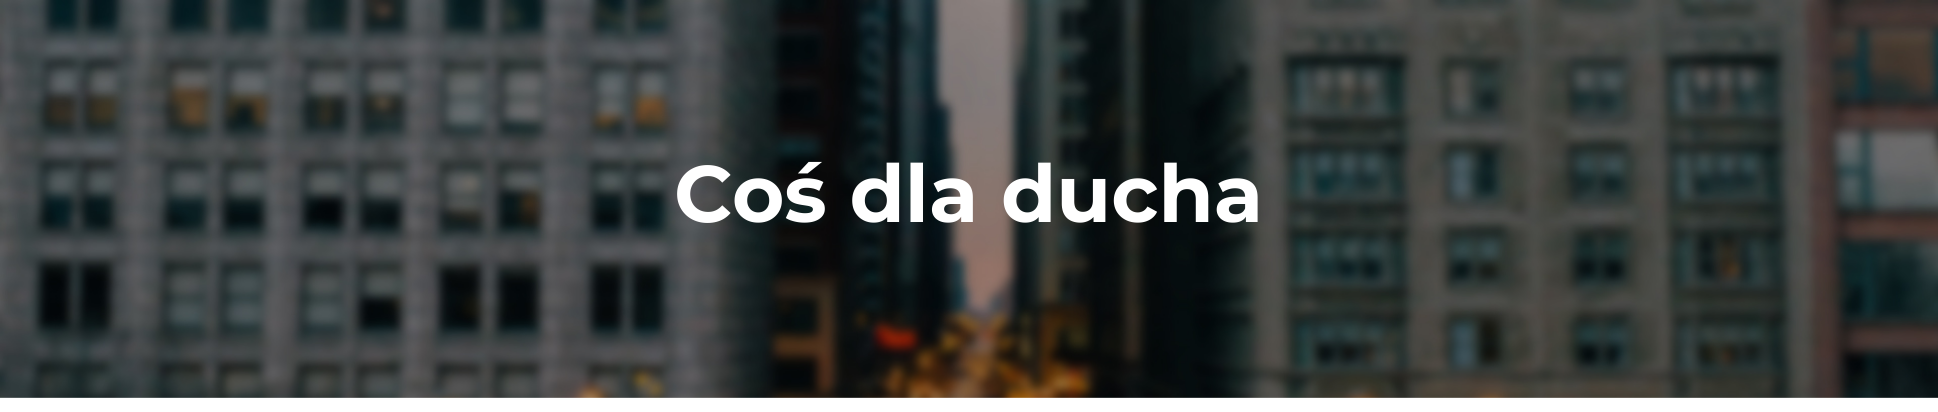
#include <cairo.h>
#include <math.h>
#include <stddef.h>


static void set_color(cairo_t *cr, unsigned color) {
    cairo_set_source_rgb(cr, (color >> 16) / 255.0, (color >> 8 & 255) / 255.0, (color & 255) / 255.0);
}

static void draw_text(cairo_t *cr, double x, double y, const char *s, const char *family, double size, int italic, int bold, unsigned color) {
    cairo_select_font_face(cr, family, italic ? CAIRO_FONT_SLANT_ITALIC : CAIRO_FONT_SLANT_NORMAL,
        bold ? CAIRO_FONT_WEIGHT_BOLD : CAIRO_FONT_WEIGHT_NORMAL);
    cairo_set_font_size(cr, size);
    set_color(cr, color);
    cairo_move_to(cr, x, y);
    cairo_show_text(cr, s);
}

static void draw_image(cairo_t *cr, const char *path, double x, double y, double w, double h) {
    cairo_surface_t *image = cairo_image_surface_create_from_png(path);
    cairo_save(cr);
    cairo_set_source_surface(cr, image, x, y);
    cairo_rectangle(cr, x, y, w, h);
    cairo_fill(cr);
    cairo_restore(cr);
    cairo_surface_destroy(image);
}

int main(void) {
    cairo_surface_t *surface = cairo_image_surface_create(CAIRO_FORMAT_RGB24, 1938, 412);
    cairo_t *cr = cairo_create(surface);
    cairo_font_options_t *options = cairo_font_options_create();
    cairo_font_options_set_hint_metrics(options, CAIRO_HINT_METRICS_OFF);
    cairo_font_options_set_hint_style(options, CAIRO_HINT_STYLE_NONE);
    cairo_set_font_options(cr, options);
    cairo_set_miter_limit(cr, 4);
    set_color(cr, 0xFFFFFF);
    cairo_paint(cr);
    draw_image(cr, "assets/img1.png", 0, 0, 1938, 398);
    draw_text(cr, 674, 222, "Coś dla ducha", "Montserrat", 80, 0, 1, 0xFFFFFF);
    cairo_surface_write_to_png(surface, "output.png");
    cairo_font_options_destroy(options);
    cairo_destroy(cr);
    cairo_surface_destroy(surface);
    return 0;
}
